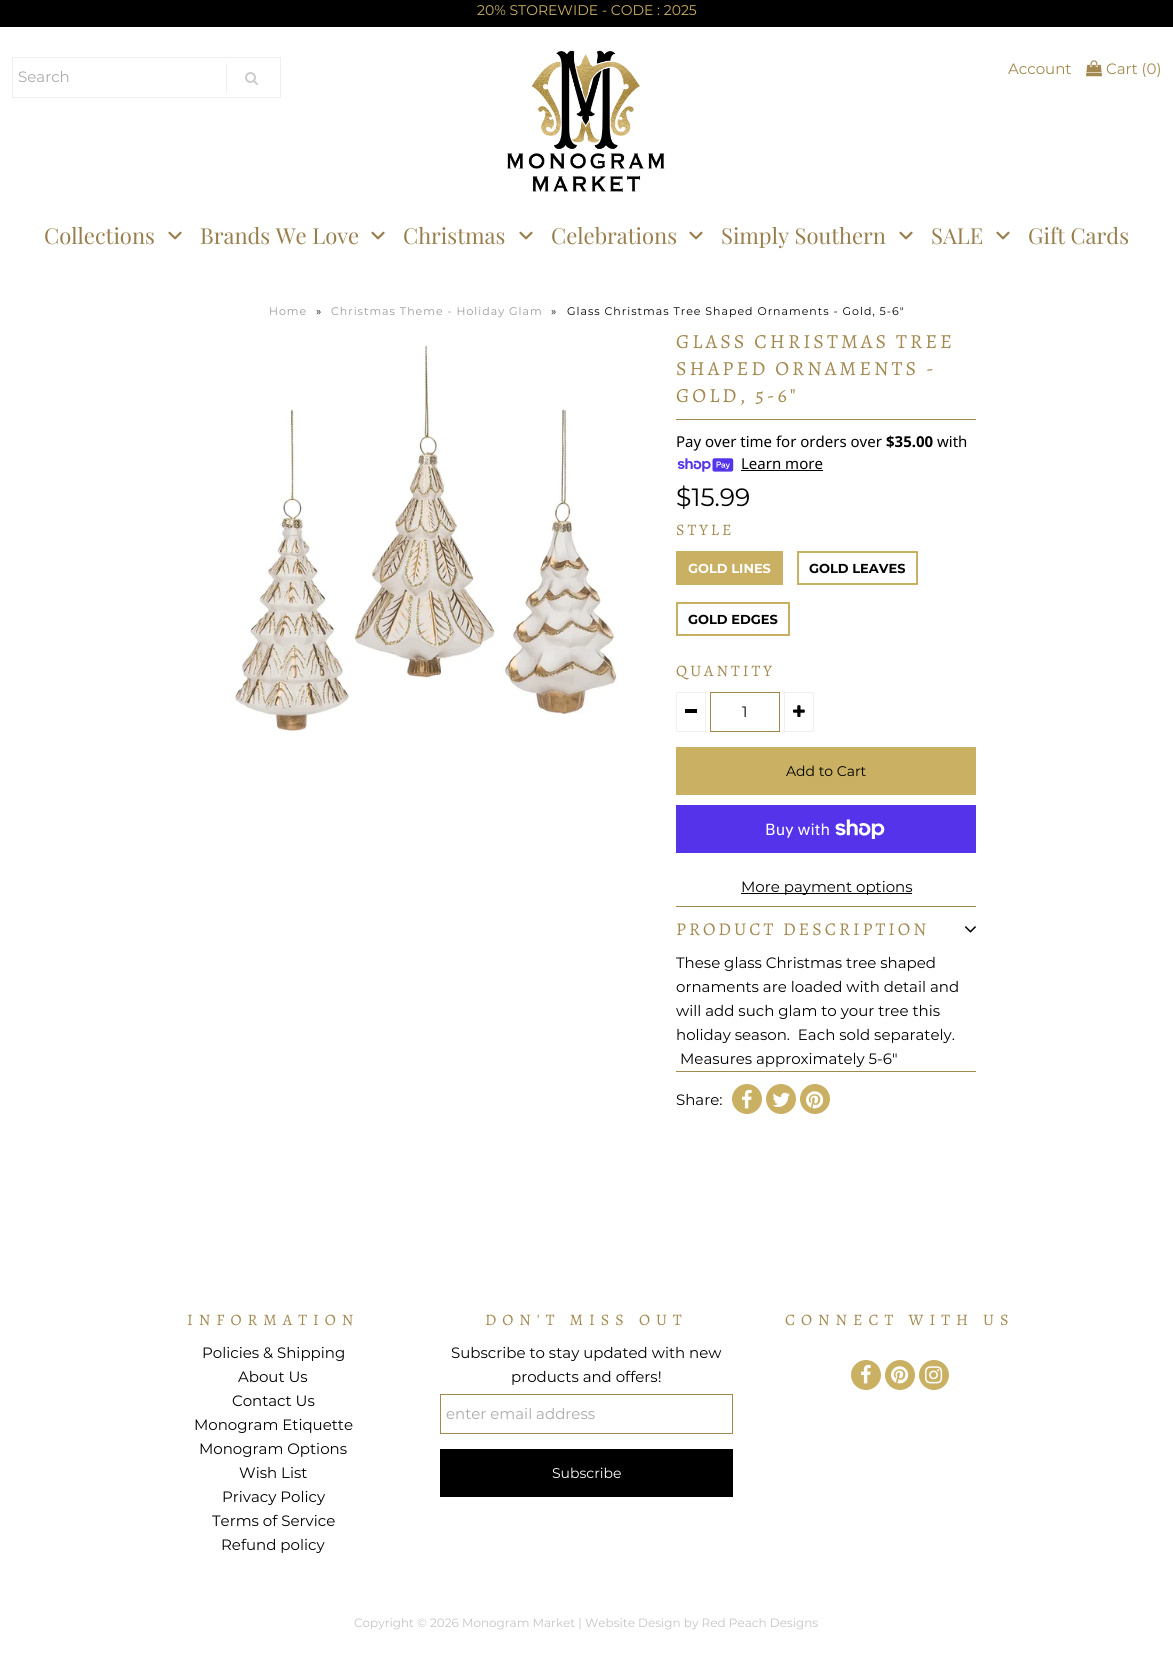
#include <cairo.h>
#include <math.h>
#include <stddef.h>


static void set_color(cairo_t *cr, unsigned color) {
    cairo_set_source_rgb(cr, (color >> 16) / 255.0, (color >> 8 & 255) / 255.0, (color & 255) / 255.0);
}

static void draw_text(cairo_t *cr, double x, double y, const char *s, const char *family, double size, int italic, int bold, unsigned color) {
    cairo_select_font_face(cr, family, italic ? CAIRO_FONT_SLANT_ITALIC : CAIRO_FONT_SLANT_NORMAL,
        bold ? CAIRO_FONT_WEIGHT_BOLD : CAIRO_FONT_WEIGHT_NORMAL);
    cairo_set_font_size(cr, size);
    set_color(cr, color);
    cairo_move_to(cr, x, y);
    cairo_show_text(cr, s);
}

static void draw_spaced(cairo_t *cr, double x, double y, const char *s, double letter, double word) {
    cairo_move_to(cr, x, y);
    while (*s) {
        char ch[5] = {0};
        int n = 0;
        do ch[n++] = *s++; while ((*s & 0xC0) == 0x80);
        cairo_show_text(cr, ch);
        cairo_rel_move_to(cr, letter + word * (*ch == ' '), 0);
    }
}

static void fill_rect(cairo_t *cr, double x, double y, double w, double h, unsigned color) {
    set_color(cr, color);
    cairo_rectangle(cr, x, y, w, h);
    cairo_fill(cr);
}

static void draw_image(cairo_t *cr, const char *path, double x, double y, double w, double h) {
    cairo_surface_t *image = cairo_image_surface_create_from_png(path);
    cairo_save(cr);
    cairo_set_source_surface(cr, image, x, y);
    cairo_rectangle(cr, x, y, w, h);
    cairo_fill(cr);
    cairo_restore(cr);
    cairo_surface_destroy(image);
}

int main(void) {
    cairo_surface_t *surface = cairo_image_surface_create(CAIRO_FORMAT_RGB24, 1173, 1667);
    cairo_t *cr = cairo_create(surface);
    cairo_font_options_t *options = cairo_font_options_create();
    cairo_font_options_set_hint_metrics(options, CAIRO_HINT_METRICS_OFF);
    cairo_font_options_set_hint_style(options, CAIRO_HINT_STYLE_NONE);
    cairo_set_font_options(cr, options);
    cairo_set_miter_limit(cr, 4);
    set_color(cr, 0xFFFFFF);
    cairo_paint(cr);
    fill_rect(cr, 0, 0, 1173, 27, 0x000000);
    draw_text(cr, 477, 15, "20% STOREWIDE - CODE : 2025", "Montserrat", 14, 0, 0, 0xCAB062);
    cairo_rectangle(cr, 12.5, 57.5, 268, 40);
    set_color(cr, 0xEFEFEF);
    cairo_set_line_width(cr, 1);
    cairo_stroke(cr);
    draw_text(cr, 18, 82, "Search", "Montserrat", 15, 0, 0, 0xAAAAAA);
    fill_rect(cr, 226, 63, 1, 30, 0xEFEFEF);
    draw_image(cr, "assets/img1.png", 245, 72, 13, 13);
    draw_image(cr, "assets/img2.png", 507, 50, 158, 143);
    draw_text(cr, 1008, 74, "Account", "Montserrat", 15, 0, 0, 0xA38950);
    draw_image(cr, "assets/img3.png", 1086, 60, 16, 17);
    draw_text(cr, 1106, 74, "Cart (0)", "Montserrat", 15, 0, 0, 0xA38950);
    draw_text(cr, 44, 244, "Collections", "Playfair Display", 22, 0, 0, 0x987E4C);
    draw_image(cr, "assets/img4.png", 168, 231, 14, 9);
    draw_text(cr, 200, 244, "Brands We Love", "Playfair Display", 22, 0, 0, 0x987E4C);
    draw_image(cr, "assets/img4.png", 371, 231, 14, 9);
    draw_text(cr, 403, 244, "Christmas", "Playfair Display", 22, 0, 0, 0x987E4C);
    draw_image(cr, "assets/img4.png", 519, 231, 14, 9);
    draw_text(cr, 551, 244, "Celebrations", "Playfair Display", 22, 0, 0, 0x987E4C);
    draw_image(cr, "assets/img4.png", 689, 231, 14, 9);
    draw_text(cr, 721, 244, "Simply Southern", "Playfair Display", 22, 0, 0, 0x987E4C);
    draw_image(cr, "assets/img4.png", 899, 231, 14, 9);
    draw_text(cr, 931, 244, "SALE", "Playfair Display", 22, 0, 0, 0x987E4C);
    draw_image(cr, "assets/img4.png", 996, 231, 14, 9);
    draw_text(cr, 1028, 244, "Gift Cards", "Playfair Display", 22, 0, 0, 0x987E4C);
    cairo_select_font_face(cr, "Montserrat", CAIRO_FONT_SLANT_NORMAL, CAIRO_FONT_WEIGHT_NORMAL);
    cairo_set_font_size(cr, 11);
    set_color(cr, 0x999999);
    draw_spaced(cr, 269, 315, "Home", 1, 0);
    set_color(cr, 0x000000);
    draw_spaced(cr, 316, 315, "»", 1, 0);
    set_color(cr, 0x999999);
    draw_spaced(cr, 331, 315, "Christmas Theme - Holiday Glam", 1, 0);
    set_color(cr, 0x000000);
    draw_spaced(cr, 551, 315, "»", 1, 0);
    draw_spaced(cr, 567, 315, "Glass Christmas Tree Shaped Ornaments - Gold, 5-6\"", 1, 0);
    draw_image(cr, "assets/img5.png", 235, 345, 383, 387);
    fill_rect(cr, 676, 419, 300, 1, 0xA38950);
    cairo_select_font_face(cr, "Alegreya", CAIRO_FONT_SLANT_NORMAL, CAIRO_FONT_WEIGHT_NORMAL);
    cairo_set_font_size(cr, 20);
    draw_spaced(cr, 676, 348, "GLASS CHRISTMAS TREE", 3, 0);
    draw_spaced(cr, 676, 375, "SHAPED ORNAMENTS -", 3, 0);
    draw_spaced(cr, 676, 402, "GOLD, 5-6\"", 3, 0);
    draw_text(cr, 676, 447, "Pay over time for orders over", "Noto Sans", 15, 0, 0, 0x000000);
    draw_text(cr, 886, 447, "$35.00", "Noto Sans", 15, 0, 1, 0x000000);
    draw_text(cr, 937, 447, "with", "Noto Sans", 15, 0, 0, 0x000000);
    draw_image(cr, "assets/img6.png", 677, 458, 57, 14);
    draw_text(cr, 741, 469, "Learn more", "Noto Sans", 15, 0, 0, 0x000000);
    fill_rect(cr, 741, 470, 82, 1, 0x000000);
    draw_text(cr, 676, 506, "$15.99", "Montserrat", 25, 0, 0, 0x000000);
    cairo_select_font_face(cr, "Alegreya", CAIRO_FONT_SLANT_NORMAL, CAIRO_FONT_WEIGHT_NORMAL);
    cairo_set_font_size(cr, 16);
    set_color(cr, 0xA38950);
    draw_spaced(cr, 676, 535, "STYLE", 3, 0);
    fill_rect(cr, 676, 551, 107, 34, 0xCAB062);
    draw_text(cr, 688, 573, "GOLD LINES", "Montserrat", 13, 0, 1, 0xFFFFFF);
    cairo_rectangle(cr, 798, 552, 119, 32);
    set_color(cr, 0xCAB062);
    cairo_set_line_width(cr, 2);
    cairo_stroke(cr);
    draw_text(cr, 809, 573, "GOLD LEAVES", "Montserrat", 13, 0, 1, 0x000000);
    cairo_rectangle(cr, 677, 603, 112, 32);
    set_color(cr, 0xCAB062);
    cairo_stroke(cr);
    draw_text(cr, 688, 624, "GOLD EDGES", "Montserrat", 13, 0, 1, 0x000000);
    cairo_select_font_face(cr, "Alegreya", CAIRO_FONT_SLANT_NORMAL, CAIRO_FONT_WEIGHT_NORMAL);
    cairo_set_font_size(cr, 16);
    set_color(cr, 0xA38950);
    draw_spaced(cr, 676, 676, "QUANTITY", 3, 0);
    cairo_rectangle(cr, 676.5, 692.5, 29, 39);
    set_color(cr, 0xF0F0F0);
    cairo_set_line_width(cr, 1);
    cairo_stroke(cr);
    fill_rect(cr, 685, 709, 12, 4, 0x000000);
    cairo_rectangle(cr, 710.5, 692.5, 69, 39);
    set_color(cr, 0xA38950);
    cairo_stroke(cr);
    draw_text(cr, 742, 717, "1", "Montserrat", 15, 0, 0, 0x000000);
    cairo_rectangle(cr, 784.5, 692.5, 29, 39);
    set_color(cr, 0xF0F0F0);
    cairo_stroke(cr);
    draw_image(cr, "assets/img7.png", 793, 705, 12, 12);
    fill_rect(cr, 676, 747, 300, 48, 0xCAB062);
    draw_text(cr, 786, 776, "Add to Cart", "Montserrat", 14, 0, 0, 0x000000);
    fill_rect(cr, 676, 805, 300, 48, 0x5433EB);
    draw_text(cr, 765, 835, "Buy with", "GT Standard", 16, 0, 0, 0xFFFFFF);
    draw_image(cr, "assets/img8.png", 835, 819, 50, 20);
    fill_rect(cr, 741, 893, 171, 1, 0x000000);
    draw_text(cr, 741, 892, "More payment options", "Montserrat", 15, 0, 0, 0x000000);
    fill_rect(cr, 676, 906, 300, 1, 0xA38950);
    cairo_select_font_face(cr, "Alegreya", CAIRO_FONT_SLANT_NORMAL, CAIRO_FONT_WEIGHT_NORMAL);
    cairo_set_font_size(cr, 18);
    draw_spaced(cr, 676, 935, "PRODUCT DESCRIPTION", 3, 0);
    draw_image(cr, "assets/img9.png", 964, 926, 12, 7);
    draw_text(cr, 676, 968, "These glass Christmas tree shaped", "Montserrat", 15, 0, 0, 0x000000);
    draw_text(cr, 676, 992, "ornaments are loaded with detail and", "Montserrat", 15, 0, 0, 0x000000);
    draw_text(cr, 676, 1016, "will add such glam to your tree this", "Montserrat", 15, 0, 0, 0x000000);
    draw_text(cr, 676, 1040, "holiday season.  Each sold separately.", "Montserrat", 15, 0, 0, 0x000000);
    draw_text(cr, 680, 1064, "Measures approximately 5-6\"", "Montserrat", 15, 0, 0, 0x000000);
    fill_rect(cr, 676, 1071, 300, 1, 0xA38950);
    draw_text(cr, 676, 1105, "Share:", "Montserrat", 15, 0, 0, 0x000000);
    set_color(cr, 0xCAB062);
    cairo_new_path(cr);
    cairo_arc(cr, 747, 1099, 15, 0, 2 * M_PI);
    cairo_fill(cr);
    draw_image(cr, "assets/img10.png", 742, 1089, 10, 20);
    cairo_arc(cr, 781, 1099, 15, 0, 2 * M_PI);
    cairo_fill(cr);
    draw_image(cr, "assets/img11.png", 772, 1092, 18, 15);
    cairo_arc(cr, 815, 1099, 15, 0, 2 * M_PI);
    cairo_fill(cr);
    draw_image(cr, "assets/img12.png", 806, 1091, 18, 18);
    cairo_select_font_face(cr, "Alegreya", CAIRO_FONT_SLANT_NORMAL, CAIRO_FONT_WEIGHT_NORMAL);
    cairo_set_font_size(cr, 16);
    set_color(cr, 0xA38950);
    draw_spaced(cr, 187, 1325, "INFORMATION", 6, 0);
    draw_text(cr, 202, 1358, "Policies & Shipping", "Montserrat", 15, 0, 0, 0x000000);
    draw_text(cr, 238, 1382, "About Us", "Montserrat", 15, 0, 0, 0x000000);
    draw_text(cr, 232, 1406, "Contact Us", "Montserrat", 15, 0, 0, 0x000000);
    draw_text(cr, 194, 1430, "Monogram Etiquette", "Montserrat", 15, 0, 0, 0x000000);
    draw_text(cr, 199, 1454, "Monogram Options", "Montserrat", 15, 0, 0, 0x000000);
    draw_text(cr, 239, 1478, "Wish List", "Montserrat", 15, 0, 0, 0x000000);
    draw_text(cr, 222, 1502, "Privacy Policy", "Montserrat", 15, 0, 0, 0x000000);
    draw_text(cr, 212, 1526, "Terms of Service", "Montserrat", 15, 0, 0, 0x000000);
    draw_text(cr, 221, 1550, "Refund policy", "Montserrat", 15, 0, 0, 0x000000);
    cairo_select_font_face(cr, "Alegreya", CAIRO_FONT_SLANT_NORMAL, CAIRO_FONT_WEIGHT_NORMAL);
    cairo_set_font_size(cr, 16);
    set_color(cr, 0xA38950);
    draw_spaced(cr, 485, 1325, "DON'T MISS OUT", 6, 0);
    draw_text(cr, 451, 1358, "Subscribe to stay updated with new", "Montserrat", 15, 0, 0, 0x000000);
    draw_text(cr, 511, 1382, "products and offers!", "Montserrat", 15, 0, 0, 0x000000);
    cairo_rectangle(cr, 440.5, 1394.5, 292, 39);
    set_color(cr, 0xA38950);
    cairo_stroke(cr);
    draw_text(cr, 446, 1419, "enter email address", "Montserrat", 15, 0, 0, 0xAAAAAA);
    fill_rect(cr, 440, 1449, 293, 48, 0x000000);
    draw_text(cr, 552, 1478, "Subscribe", "Montserrat", 14, 0, 0, 0xFFFFFF);
    cairo_select_font_face(cr, "Alegreya", CAIRO_FONT_SLANT_NORMAL, CAIRO_FONT_WEIGHT_NORMAL);
    cairo_set_font_size(cr, 16);
    set_color(cr, 0xA38950);
    draw_spaced(cr, 785, 1325, "CONNECT WITH US", 6, 0);
    set_color(cr, 0xCAB062);
    cairo_new_path(cr);
    cairo_arc(cr, 866, 1375, 15, 0, 2 * M_PI);
    cairo_fill(cr);
    draw_image(cr, "assets/img10.png", 861, 1364, 10, 20);
    cairo_arc(cr, 900, 1375, 15, 0, 2 * M_PI);
    cairo_fill(cr);
    draw_image(cr, "assets/img12.png", 891, 1366, 18, 18);
    cairo_arc(cr, 934, 1375, 15, 0, 2 * M_PI);
    cairo_fill(cr);
    draw_image(cr, "assets/img13.png", 925, 1366, 18, 18);
    draw_text(cr, 354, 1627, "Copyright © 2026 Monogram Market | Website Design by Red Peach Designs", "Montserrat", 12, 0, 0, 0xC5C4C4);
    cairo_surface_write_to_png(surface, "output.png");
    cairo_font_options_destroy(options);
    cairo_destroy(cr);
    cairo_surface_destroy(surface);
    return 0;
}
